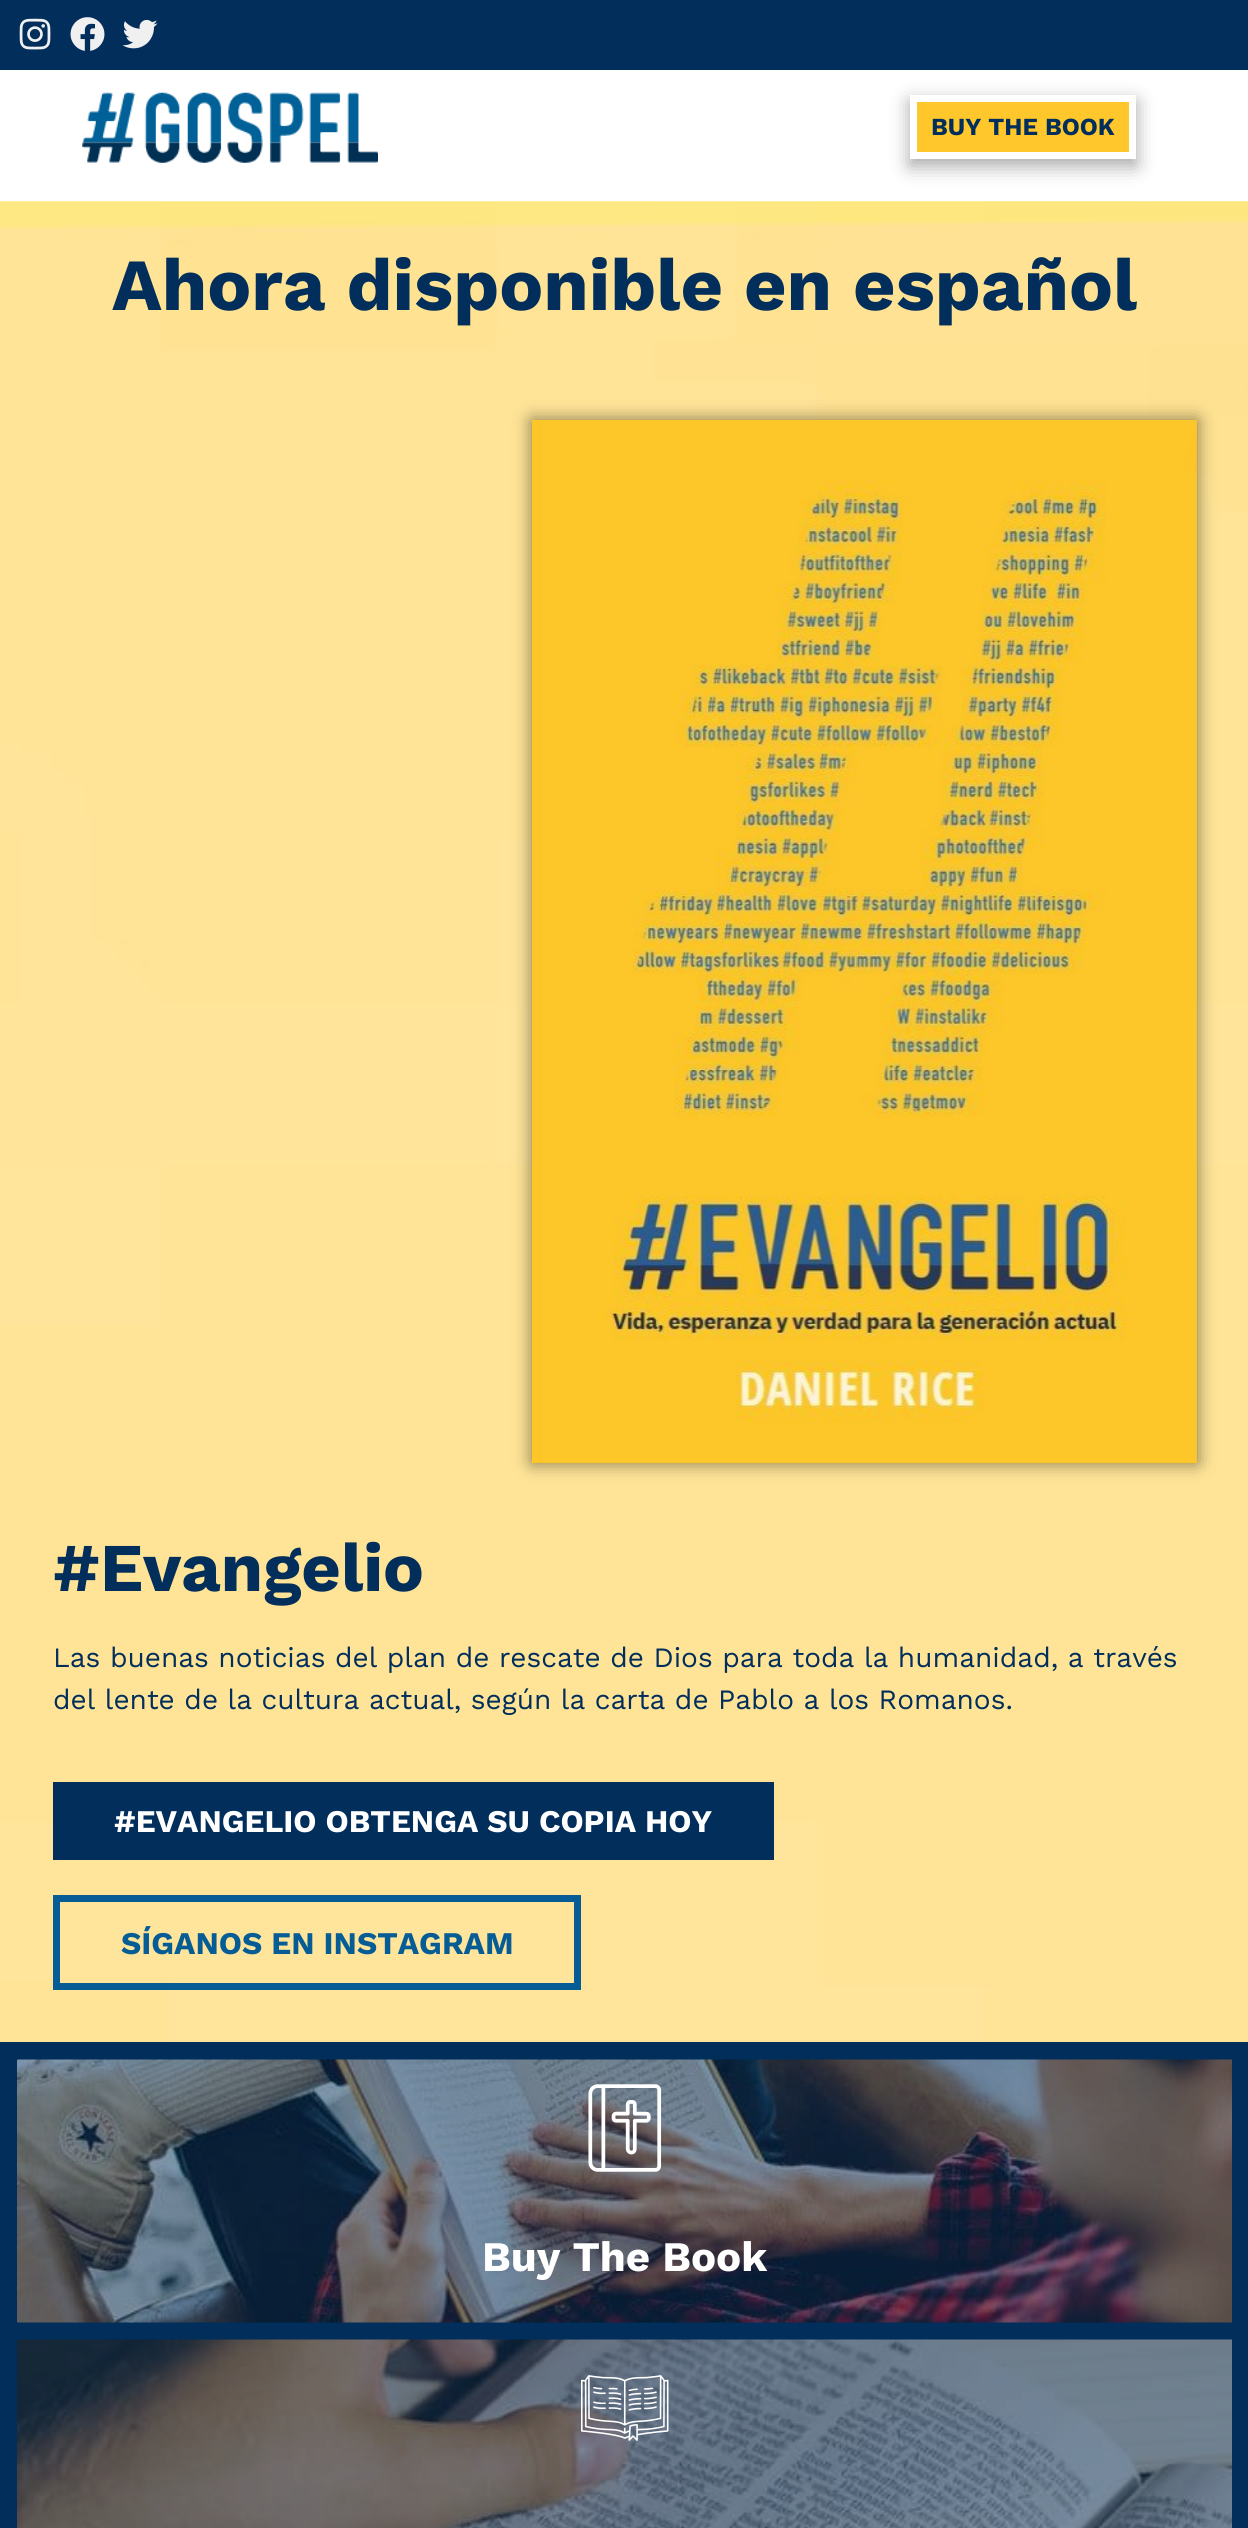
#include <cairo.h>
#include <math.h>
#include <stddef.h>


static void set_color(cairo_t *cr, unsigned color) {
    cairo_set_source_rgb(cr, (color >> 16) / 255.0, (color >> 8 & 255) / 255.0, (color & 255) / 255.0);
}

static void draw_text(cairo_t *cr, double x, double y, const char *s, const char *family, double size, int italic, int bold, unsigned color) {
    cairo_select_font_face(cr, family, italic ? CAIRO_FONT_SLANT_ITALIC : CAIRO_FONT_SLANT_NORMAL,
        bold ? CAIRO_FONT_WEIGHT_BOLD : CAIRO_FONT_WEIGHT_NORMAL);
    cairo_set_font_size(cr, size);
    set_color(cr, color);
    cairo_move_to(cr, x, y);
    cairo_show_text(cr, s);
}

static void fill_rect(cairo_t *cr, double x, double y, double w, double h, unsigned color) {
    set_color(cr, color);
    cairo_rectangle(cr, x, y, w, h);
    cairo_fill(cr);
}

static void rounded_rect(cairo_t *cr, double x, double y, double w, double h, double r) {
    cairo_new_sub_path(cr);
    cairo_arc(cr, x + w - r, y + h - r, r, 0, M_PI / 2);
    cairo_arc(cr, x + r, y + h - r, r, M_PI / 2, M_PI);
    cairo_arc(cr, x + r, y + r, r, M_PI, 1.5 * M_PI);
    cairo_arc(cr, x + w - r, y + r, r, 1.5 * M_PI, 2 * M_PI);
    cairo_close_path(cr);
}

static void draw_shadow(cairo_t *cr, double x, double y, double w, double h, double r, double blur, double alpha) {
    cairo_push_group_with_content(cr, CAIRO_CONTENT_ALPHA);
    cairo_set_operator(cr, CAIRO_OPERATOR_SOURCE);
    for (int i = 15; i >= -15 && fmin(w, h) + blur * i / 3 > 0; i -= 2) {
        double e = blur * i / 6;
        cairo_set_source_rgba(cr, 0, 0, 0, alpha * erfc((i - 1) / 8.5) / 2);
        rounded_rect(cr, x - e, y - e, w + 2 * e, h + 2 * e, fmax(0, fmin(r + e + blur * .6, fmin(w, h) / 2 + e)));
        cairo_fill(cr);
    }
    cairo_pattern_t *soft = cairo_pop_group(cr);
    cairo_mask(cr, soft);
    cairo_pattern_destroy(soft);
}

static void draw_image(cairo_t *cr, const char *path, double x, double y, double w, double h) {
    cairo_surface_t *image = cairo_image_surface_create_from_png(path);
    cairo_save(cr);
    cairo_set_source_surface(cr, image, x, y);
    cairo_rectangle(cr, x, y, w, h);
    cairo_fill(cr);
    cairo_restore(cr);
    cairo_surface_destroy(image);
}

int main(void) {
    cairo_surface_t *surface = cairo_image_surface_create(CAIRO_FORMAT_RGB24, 1248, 2528);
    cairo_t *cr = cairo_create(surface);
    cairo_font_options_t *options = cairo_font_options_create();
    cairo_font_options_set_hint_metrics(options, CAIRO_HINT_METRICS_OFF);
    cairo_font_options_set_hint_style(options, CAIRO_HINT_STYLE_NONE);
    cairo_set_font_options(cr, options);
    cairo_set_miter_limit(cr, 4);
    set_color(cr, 0xFFFFFF);
    cairo_paint(cr);
    fill_rect(cr, 0, 0, 1248, 70, 0x012E5B);
    draw_image(cr, "assets/img1.png", 19, 18, 32, 32);
    draw_image(cr, "assets/img2.png", 70, 17, 35, 34);
    draw_image(cr, "assets/img3.png", 122, 19, 36, 30);
    draw_image(cr, "assets/img4.png", 82, 92, 296, 71);
    set_color(cr, 0x000000);
    draw_shadow(cr, 910, 102, 226, 64, 0, 9.5, 0.35);
    set_color(cr, 0xFFC72C);
    cairo_rectangle(cr, 913.5, 98.5, 219, 57);
    cairo_fill_preserve(cr);
    set_color(cr, 0xFFFFFF);
    cairo_set_line_width(cr, 7);
    cairo_stroke(cr);
    draw_text(cr, 931, 135, "BUY THE BOOK", "Work Sans", 24.5, 0, 1, 0x012E5B);
    draw_image(cr, "assets/img5.png", 0, 201, 1248, 1841);
    draw_text(cr, 112, 310, "Ahora disponible en español", "Work Sans", 73.5, 0, 1, 0x012E5B);
    set_color(cr, 0x000000);
    draw_shadow(cr, 532, 420, 665, 1043, 0, 9, 0.5);
    draw_image(cr, "assets/img6.png", 532, 420, 665, 1044);
    draw_text(cr, 53, 1591, "#Evangelio", "Work Sans", 68.25, 0, 1, 0x012E5B);
    draw_text(cr, 53, 1667, "Las buenas noticias del plan de rescate de Dios para toda la humanidad, a través", "Work Sans", 28, 0, 0, 0x012E5B);
    draw_text(cr, 53, 1709, "del lente de la cultura actual, según la carta de Pablo a los Romanos.", "Work Sans", 28, 0, 0, 0x012E5B);
    fill_rect(cr, 53, 1782, 721, 78, 0x012E5B);
    draw_text(cr, 114, 1832, "#EVANGELIO OBTENGA SU COPIA HOY", "Work Sans", 31.5, 0, 1, 0xFFFFFF);
    cairo_rectangle(cr, 56.5, 1898.5, 521, 88);
    set_color(cr, 0x065D96);
    cairo_stroke(cr);
    draw_text(cr, 121, 1954, "SÍGANOS EN INSTAGRAM", "Work Sans", 31.5, 0, 1, 0x065D96);
    fill_rect(cr, 0, 2042, 1248, 486, 0x012E5B);
    draw_image(cr, "assets/img7.png", 17, 2059, 1215, 264);
    draw_image(cr, "assets/img8.png", 588, 2084, 74, 88);
    draw_text(cr, 482, 2271, "Buy The Book", "Work Sans", 42, 0, 1, 0xFFFFFF);
    draw_image(cr, "assets/img9.png", 17, 2339, 1215, 189);
    draw_image(cr, "assets/img10.png", 581, 2375, 88, 66);
    cairo_surface_write_to_png(surface, "output.png");
    cairo_font_options_destroy(options);
    cairo_destroy(cr);
    cairo_surface_destroy(surface);
    return 0;
}
